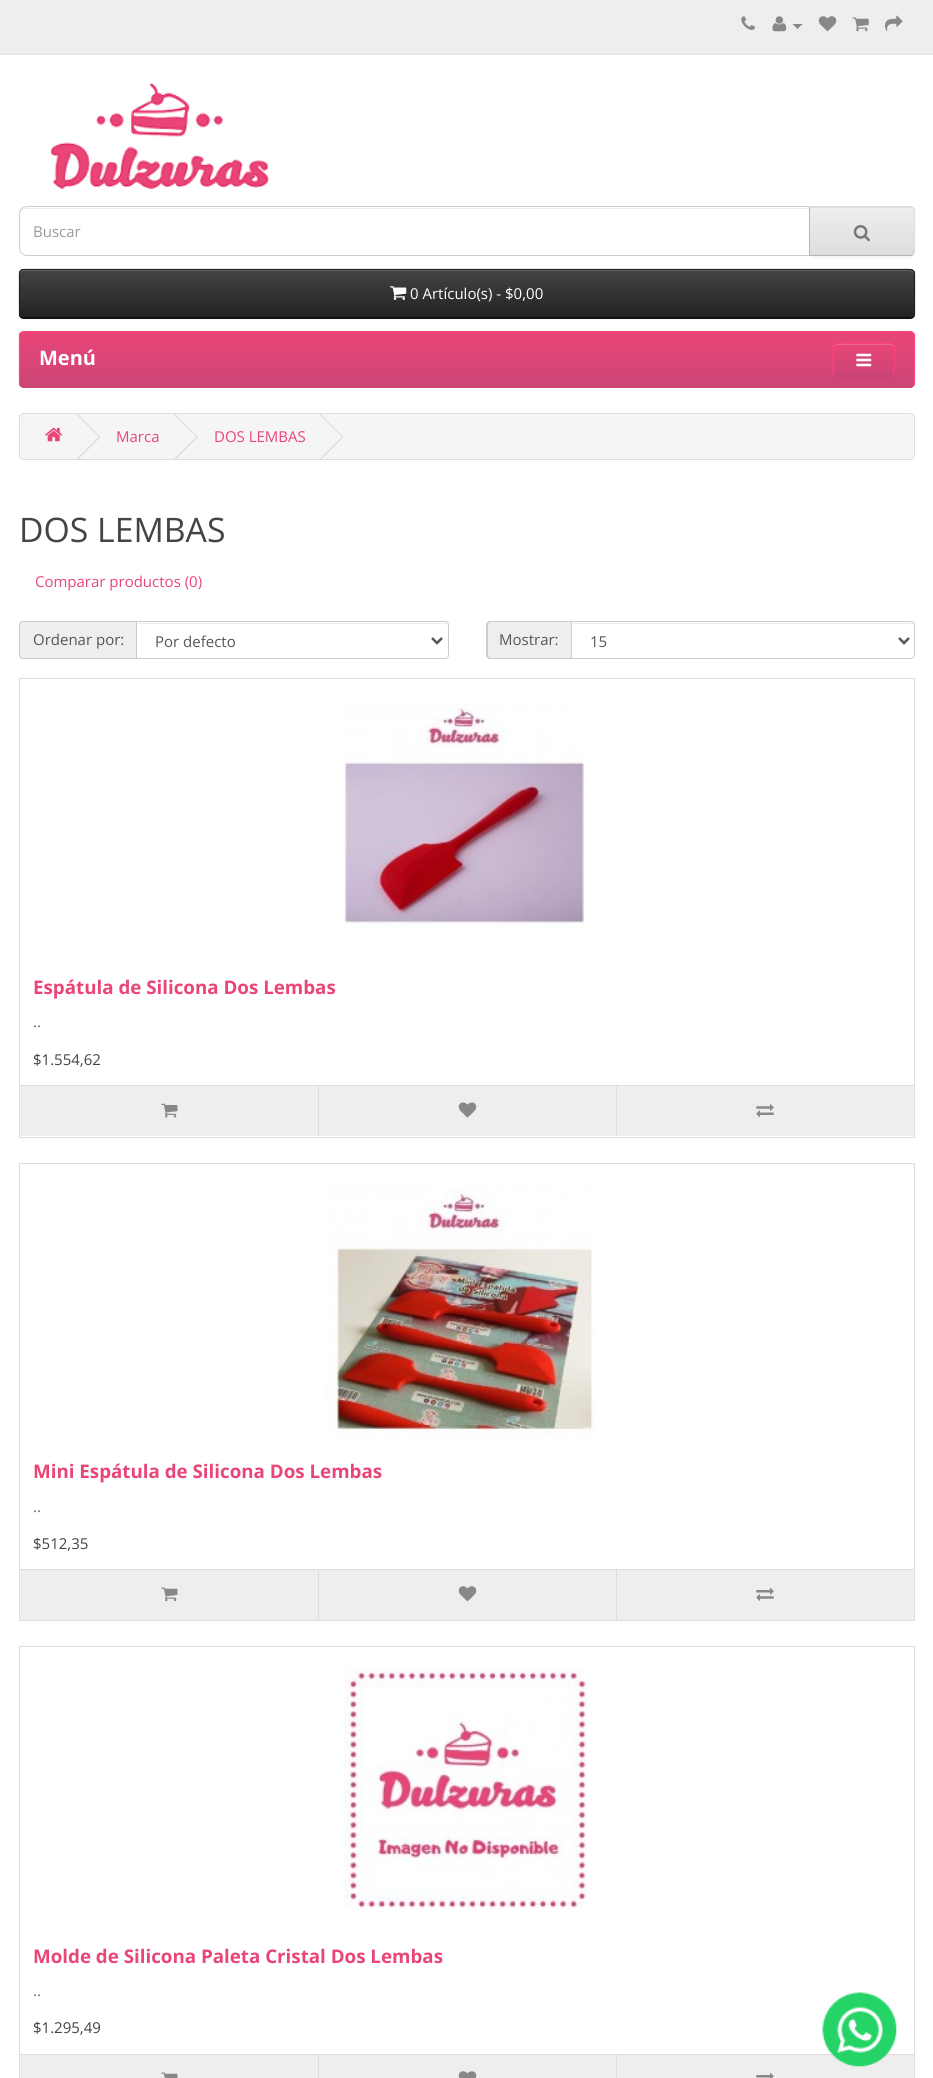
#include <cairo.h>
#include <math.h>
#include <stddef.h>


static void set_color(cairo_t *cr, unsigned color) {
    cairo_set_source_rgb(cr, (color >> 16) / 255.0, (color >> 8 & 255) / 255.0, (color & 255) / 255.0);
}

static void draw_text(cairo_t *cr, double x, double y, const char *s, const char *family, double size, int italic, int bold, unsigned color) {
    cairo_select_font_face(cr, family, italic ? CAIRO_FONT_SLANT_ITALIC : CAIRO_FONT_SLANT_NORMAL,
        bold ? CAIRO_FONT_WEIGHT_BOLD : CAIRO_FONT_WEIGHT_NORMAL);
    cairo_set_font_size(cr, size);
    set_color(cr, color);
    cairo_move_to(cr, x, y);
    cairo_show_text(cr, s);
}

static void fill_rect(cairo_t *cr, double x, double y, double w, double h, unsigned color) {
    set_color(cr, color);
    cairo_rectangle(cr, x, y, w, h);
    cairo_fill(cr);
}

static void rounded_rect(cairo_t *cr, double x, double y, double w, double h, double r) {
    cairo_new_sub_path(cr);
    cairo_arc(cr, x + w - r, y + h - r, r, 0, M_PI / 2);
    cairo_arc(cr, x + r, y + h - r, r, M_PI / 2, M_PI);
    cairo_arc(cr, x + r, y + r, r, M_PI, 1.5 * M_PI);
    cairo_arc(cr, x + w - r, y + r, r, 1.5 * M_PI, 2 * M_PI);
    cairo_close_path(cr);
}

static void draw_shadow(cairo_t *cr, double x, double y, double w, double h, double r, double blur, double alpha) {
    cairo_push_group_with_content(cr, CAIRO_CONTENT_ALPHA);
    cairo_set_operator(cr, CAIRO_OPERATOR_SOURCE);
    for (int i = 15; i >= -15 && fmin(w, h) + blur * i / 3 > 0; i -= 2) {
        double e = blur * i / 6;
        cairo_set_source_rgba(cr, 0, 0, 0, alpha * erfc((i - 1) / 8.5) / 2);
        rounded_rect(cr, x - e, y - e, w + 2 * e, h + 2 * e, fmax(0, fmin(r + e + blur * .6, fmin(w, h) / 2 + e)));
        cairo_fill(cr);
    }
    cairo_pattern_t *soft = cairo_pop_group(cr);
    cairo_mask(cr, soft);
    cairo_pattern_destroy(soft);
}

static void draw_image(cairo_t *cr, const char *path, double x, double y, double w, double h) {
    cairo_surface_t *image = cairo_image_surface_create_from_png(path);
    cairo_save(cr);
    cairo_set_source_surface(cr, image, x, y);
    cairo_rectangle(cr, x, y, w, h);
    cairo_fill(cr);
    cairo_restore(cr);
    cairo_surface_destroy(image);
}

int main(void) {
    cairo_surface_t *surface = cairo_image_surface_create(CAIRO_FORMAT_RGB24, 933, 2078);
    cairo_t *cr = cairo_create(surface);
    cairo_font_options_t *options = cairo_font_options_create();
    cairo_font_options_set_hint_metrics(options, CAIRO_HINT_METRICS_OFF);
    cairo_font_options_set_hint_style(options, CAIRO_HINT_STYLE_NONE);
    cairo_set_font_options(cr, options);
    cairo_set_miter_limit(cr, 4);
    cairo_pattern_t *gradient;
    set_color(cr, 0xFFFFFF);
    cairo_paint(cr);
    fill_rect(cr, 0, 0, 933, 54, 0xEEEEEE);
    fill_rect(cr, 0, 54, 933, 1, 0xE2E2E2);
    draw_image(cr, "assets/img1.png", 741, 16, 14, 14);
    draw_image(cr, "assets/img2.png", 772, 16, 15, 16);
    set_color(cr, 0x888888);
    cairo_new_path(cr);
    cairo_move_to(cr, 792.5, 24);
    cairo_line_to(cr, 802.5, 24);
    cairo_line_to(cr, 797.5, 29);
    cairo_close_path(cr);
    cairo_fill(cr);
    draw_image(cr, "assets/img3.png", 818, 16, 19, 16);
    draw_image(cr, "assets/img4.png", 852, 17, 17, 15);
    draw_image(cr, "assets/img5.png", 885, 15, 18, 17);
    draw_image(cr, "assets/img6.png", 51, 83, 218, 106);
    set_color(cr, 0xECECEC);
    cairo_new_path(cr);
    cairo_move_to(cr, 26, 209);
    cairo_line_to(cr, 809, 209);
    cairo_line_to(cr, 809, 208);
    cairo_line_to(cr, 26, 208);
    cairo_curve_to(cr, 22, 208, 20, 211, 20, 215);
    cairo_curve_to(cr, 20, 212, 23, 209, 26, 209);
    cairo_close_path(cr);
    cairo_fill(cr);
    cairo_new_path(cr);
    cairo_move_to(cr, 27, 206.5);
    cairo_line_to(cr, 809.5, 206.5);
    cairo_line_to(cr, 809.5, 255.5);
    cairo_line_to(cr, 27, 255.5);
    cairo_curve_to(cr, 23, 255.5, 19.5, 252, 19.5, 248);
    cairo_line_to(cr, 19.5, 214);
    cairo_curve_to(cr, 19.5, 210, 23, 206.5, 27, 206.5);
    cairo_close_path(cr);
    set_color(cr, 0xCCCCCC);
    cairo_set_line_width(cr, 1);
    cairo_stroke(cr);
    draw_text(cr, 33, 237, "Buscar", "Open Sans", 15, 0, 0, 0x999999);
    set_color(cr, 0x000000);
    draw_shadow(cr, 809, 208, 106, 50, 5, 1, 0.05);
    cairo_save(cr);
    cairo_new_path(cr);
    cairo_move_to(cr, 809, 206);
    cairo_line_to(cr, 910, 206);
    cairo_curve_to(cr, 913, 206, 915, 208, 915, 211);
    cairo_line_to(cr, 915, 251);
    cairo_curve_to(cr, 915, 254, 913, 256, 910, 256);
    cairo_line_to(cr, 809, 256);
    cairo_close_path(cr);
    cairo_clip(cr);
    gradient = cairo_pattern_create_linear(862, 208, 862, 255);
    cairo_pattern_add_color_stop_rgba(gradient, 0, 0.933, 0.933, 0.933, 1);
    cairo_pattern_add_color_stop_rgba(gradient, 1, 0.867, 0.867, 0.867, 1);
    cairo_set_source(cr, gradient);
    cairo_pattern_destroy(gradient);
    cairo_rectangle(cr, 810, 208, 105, 47);
    cairo_fill(cr);
    cairo_restore(cr);
    set_color(cr, 0xF1F1F1);
    cairo_new_path(cr);
    cairo_move_to(cr, 810, 209);
    cairo_line_to(cr, 910, 209);
    cairo_curve_to(cr, 912, 209, 914, 210, 914, 212);
    cairo_curve_to(cr, 914, 210, 912, 208, 910, 208);
    cairo_line_to(cr, 810, 208);
    cairo_close_path(cr);
    cairo_fill(cr);
    set_color(cr, 0xDDDDDD);
    cairo_new_path(cr);
    cairo_move_to(cr, 809, 206);
    cairo_line_to(cr, 912, 206);
    cairo_line_to(cr, 914, 208);
    cairo_line_to(cr, 913, 209);
    cairo_line_to(cr, 910, 208);
    cairo_line_to(cr, 810, 208);
    cairo_close_path(cr);
    cairo_fill(cr);
    cairo_new_path(cr);
    cairo_move_to(cr, 915, 251);
    cairo_line_to(cr, 915, 211);
    cairo_curve_to(cr, 915, 210, 915, 208, 914, 208);
    cairo_line_to(cr, 913, 209);
    cairo_line_to(cr, 914, 211);
    cairo_line_to(cr, 914, 251);
    cairo_line_to(cr, 913, 254);
    cairo_line_to(cr, 913, 255);
    cairo_curve_to(cr, 914, 254, 915, 253, 915, 251);
    cairo_close_path(cr);
    cairo_fill(cr);
    set_color(cr, 0xB3B3B3);
    cairo_new_path(cr);
    cairo_move_to(cr, 913, 255);
    cairo_line_to(cr, 911, 256);
    cairo_line_to(cr, 809, 256);
    cairo_line_to(cr, 810, 255);
    cairo_line_to(cr, 910, 255);
    cairo_line_to(cr, 913, 254);
    cairo_close_path(cr);
    cairo_fill(cr);
    set_color(cr, 0xB7B7B7);
    cairo_new_path(cr);
    cairo_move_to(cr, 810, 208);
    cairo_line_to(cr, 809, 206);
    cairo_line_to(cr, 809, 256);
    cairo_line_to(cr, 810, 255);
    cairo_close_path(cr);
    cairo_fill(cr);
    draw_image(cr, "assets/img7.png", 853, 225, 17, 17);
    set_color(cr, 0x000000);
    draw_shadow(cr, 19, 270, 896, 50, 5, 1, 0.05);
    set_color(cr, 0x363636);
    rounded_rect(cr, 19, 269, 896, 50, 5);
    cairo_fill(cr);
    cairo_save(cr);
    rounded_rect(cr, 19, 269, 896, 50, 5);
    cairo_clip(cr);
    gradient = cairo_pattern_create_linear(467, 270, 467, 318);
    cairo_pattern_add_color_stop_rgba(gradient, 0, 0.267, 0.267, 0.267, 1);
    cairo_pattern_add_color_stop_rgba(gradient, 1, 0.133, 0.133, 0.133, 1);
    cairo_set_source(cr, gradient);
    cairo_pattern_destroy(gradient);
    cairo_rectangle(cr, 19, 270, 896, 48);
    cairo_fill(cr);
    cairo_restore(cr);
    set_color(cr, 0x696969);
    cairo_new_path(cr);
    cairo_move_to(cr, 24, 271);
    cairo_line_to(cr, 910, 271);
    cairo_curve_to(cr, 912, 271, 914, 273, 914, 275);
    cairo_curve_to(cr, 914, 272, 913, 270, 910, 270);
    cairo_line_to(cr, 24, 270);
    cairo_curve_to(cr, 21, 270, 20, 272, 20, 275);
    cairo_curve_to(cr, 20, 273, 22, 271, 24, 271);
    cairo_close_path(cr);
    cairo_fill(cr);
    cairo_new_path(cr);
    cairo_move_to(cr, 913, 317);
    cairo_curve_to(cr, 912.5, 317.5, 911, 318, 910, 318);
    cairo_line_to(cr, 24, 318);
    cairo_curve_to(cr, 22.5, 318, 21.5, 317.5, 20.5, 317);
    set_color(cr, 0x000000);
    cairo_set_line_width(cr, 1.2);
    cairo_stroke(cr);
    cairo_new_path(cr);
    cairo_move_to(cr, 20.5, 317);
    cairo_curve_to(cr, 20, 316, 19.5, 315, 19.5, 314);
    cairo_line_to(cr, 19.5, 274);
    cairo_curve_to(cr, 19.5, 272.5, 20, 271.5, 20.5, 270.5);
    cairo_curve_to(cr, 21.5, 270, 22.5, 269.5, 24, 269.5);
    cairo_line_to(cr, 910, 269.5);
    cairo_curve_to(cr, 911, 269.5, 912.5, 270, 913, 270.5);
    cairo_curve_to(cr, 914, 271.5, 914.5, 272.5, 914.5, 274);
    cairo_line_to(cr, 914.5, 314);
    cairo_curve_to(cr, 914.5, 315, 914, 316, 913, 317);
    set_color(cr, 0x222222);
    cairo_stroke(cr);
    draw_image(cr, "assets/img8.png", 390, 286, 17, 14);
    draw_text(cr, 410, 299, "0 Artículo(s) - $0,00", "Open Sans", 15, 0, 0, 0xFFFFFF);
    set_color(cr, 0xDC4577);
    rounded_rect(cr, 19, 331, 896, 57, 5);
    cairo_fill(cr);
    cairo_save(cr);
    rounded_rect(cr, 19, 331, 896, 57, 5);
    cairo_clip(cr);
    gradient = cairo_pattern_create_linear(467, 332, 467, 386);
    cairo_pattern_add_color_stop_rgba(gradient, 0, 0.914, 0.271, 0.467, 1);
    cairo_pattern_add_color_stop_rgba(gradient, 1, 0.804, 0.271, 0.467, 1);
    cairo_set_source(cr, gradient);
    cairo_pattern_destroy(gradient);
    cairo_rectangle(cr, 19, 333, 896, 53);
    cairo_fill(cr);
    cairo_restore(cr);
    cairo_new_path(cr);
    cairo_move_to(cr, 913, 385.5);
    cairo_curve_to(cr, 912.5, 386.5, 911, 387, 910, 387);
    cairo_line_to(cr, 24, 387);
    cairo_curve_to(cr, 22.5, 387, 21.5, 386.5, 20.5, 385.5);
    set_color(cr, 0xC84577);
    cairo_stroke(cr);
    cairo_new_path(cr);
    cairo_move_to(cr, 20.5, 385.5);
    cairo_curve_to(cr, 20, 385, 19.5, 383.5, 19.5, 382.5);
    cairo_line_to(cr, 19.5, 336);
    cairo_curve_to(cr, 19.5, 335, 20, 334, 20.5, 333);
    cairo_curve_to(cr, 21.5, 332.5, 22.5, 332, 24, 332);
    cairo_line_to(cr, 910, 332);
    cairo_curve_to(cr, 911, 332, 912.5, 332.5, 913, 333);
    cairo_curve_to(cr, 914, 334, 914.5, 335, 914.5, 336);
    cairo_line_to(cr, 914.5, 382.5);
    cairo_curve_to(cr, 914.5, 383.5, 914, 385, 913, 385.5);
    set_color(cr, 0xFF4577);
    cairo_stroke(cr);
    draw_text(cr, 39, 365, "Menú", "Open Sans", 20, 0, 1, 0xFFFFFF);
    set_color(cr, 0x000000);
    draw_shadow(cr, 833, 344, 62, 34, 5, 1, 0.05);
    set_color(cr, 0xDC4577);
    rounded_rect(cr, 833, 343, 62, 33, 5);
    cairo_fill(cr);
    cairo_save(cr);
    rounded_rect(cr, 833, 343, 62, 33, 5);
    cairo_clip(cr);
    gradient = cairo_pattern_create_linear(864, 344, 864, 375);
    cairo_pattern_add_color_stop_rgba(gradient, 0, 0.914, 0.271, 0.467, 1);
    cairo_pattern_add_color_stop_rgba(gradient, 1, 0.804, 0.271, 0.467, 1);
    cairo_set_source(cr, gradient);
    cairo_pattern_destroy(gradient);
    cairo_rectangle(cr, 833, 344, 62, 31);
    cairo_fill(cr);
    cairo_restore(cr);
    set_color(cr, 0xED6A92);
    cairo_new_path(cr);
    cairo_move_to(cr, 838, 345);
    cairo_line_to(cr, 890, 345);
    cairo_curve_to(cr, 892, 345, 894, 347, 894, 349);
    cairo_curve_to(cr, 894, 342, 886, 344, 881, 344);
    cairo_line_to(cr, 847, 344);
    cairo_curve_to(cr, 842, 344, 834, 342, 834, 349);
    cairo_curve_to(cr, 834, 347, 835, 345, 838, 345);
    cairo_close_path(cr);
    cairo_fill(cr);
    cairo_new_path(cr);
    cairo_move_to(cr, 893, 374.5);
    cairo_curve_to(cr, 892.5, 375, 891, 375.5, 890, 375.5);
    cairo_line_to(cr, 837.5, 375.5);
    cairo_curve_to(cr, 836.5, 375.5, 835, 375, 834.5, 374.5);
    set_color(cr, 0xC84577);
    cairo_stroke(cr);
    cairo_new_path(cr);
    cairo_move_to(cr, 834.5, 374.5);
    cairo_curve_to(cr, 832, 371.5, 833, 362.5, 833, 359.5);
    cairo_curve_to(cr, 833, 343, 830.5, 343, 846, 343);
    cairo_line_to(cr, 881, 343);
    cairo_curve_to(cr, 897, 343, 894.5, 343, 894.5, 359.5);
    cairo_curve_to(cr, 894.5, 362.5, 895.5, 371.5, 893, 374.5);
    set_color(cr, 0xFF4577);
    cairo_stroke(cr);
    draw_image(cr, "assets/img9.png", 856, 353, 16, 14);
    set_color(cr, 0xF5F5F5);
    rounded_rect(cr, 19.5, 413.5, 895, 46, 4.5);
    cairo_fill_preserve(cr);
    set_color(cr, 0xDDDDDD);
    cairo_set_line_width(cr, 1);
    cairo_stroke(cr);
    draw_image(cr, "assets/img10.png", 45, 427, 18, 15);
    cairo_new_path(cr);
    cairo_move_to(cr, 76.5, 414.5);
    cairo_line_to(cr, 77.5, 414);
    cairo_line_to(cr, 100.5, 437);
    cairo_line_to(cr, 99.5, 437.5);
    cairo_close_path(cr);
    cairo_fill(cr);
    cairo_new_path(cr);
    cairo_move_to(cr, 76.5, 459);
    cairo_line_to(cr, 99.5, 436);
    cairo_line_to(cr, 100.5, 437);
    cairo_line_to(cr, 77.5, 460);
    cairo_close_path(cr);
    cairo_fill(cr);
    draw_text(cr, 116, 442, "Marca", "Open Sans", 15, 0, 0, 0xE94577);
    set_color(cr, 0xDDDDDD);
    cairo_new_path(cr);
    cairo_move_to(cr, 174, 414.5);
    cairo_line_to(cr, 175, 414);
    cairo_line_to(cr, 198, 437);
    cairo_line_to(cr, 197, 437.5);
    cairo_close_path(cr);
    cairo_fill(cr);
    cairo_new_path(cr);
    cairo_move_to(cr, 174, 459);
    cairo_line_to(cr, 197, 436);
    cairo_line_to(cr, 198, 437);
    cairo_line_to(cr, 175, 460);
    cairo_close_path(cr);
    cairo_fill(cr);
    draw_text(cr, 214, 442, "DOS LEMBAS", "Open Sans", 15, 0, 0, 0xE94577);
    set_color(cr, 0xDDDDDD);
    cairo_new_path(cr);
    cairo_move_to(cr, 319.5, 414.5);
    cairo_line_to(cr, 320.5, 414);
    cairo_line_to(cr, 343.5, 437);
    cairo_line_to(cr, 342.5, 437.5);
    cairo_close_path(cr);
    cairo_fill(cr);
    cairo_new_path(cr);
    cairo_move_to(cr, 319.5, 459);
    cairo_line_to(cr, 342.5, 436);
    cairo_line_to(cr, 343.5, 437);
    cairo_line_to(cr, 320.5, 460);
    cairo_close_path(cr);
    cairo_fill(cr);
    draw_text(cr, 19, 542, "DOS LEMBAS", "Open Sans", 33.75, 0, 0, 0x444444);
    draw_text(cr, 35, 587, "Comparar productos (0)", "Open Sans", 15, 0, 0, 0xE94577);
    set_color(cr, 0xEEEEEE);
    cairo_new_path(cr);
    cairo_move_to(cr, 23, 621);
    cairo_line_to(cr, 136, 621);
    cairo_line_to(cr, 136, 659);
    cairo_line_to(cr, 23, 659);
    cairo_curve_to(cr, 21, 659, 19, 657, 19, 655);
    cairo_line_to(cr, 19, 625);
    cairo_curve_to(cr, 19, 623, 21, 621, 23, 621);
    cairo_close_path(cr);
    cairo_fill(cr);
    set_color(cr, 0xCCCCCC);
    cairo_set_fill_rule(cr, CAIRO_FILL_RULE_EVEN_ODD);
    cairo_new_path(cr);
    cairo_move_to(cr, 22, 621);
    cairo_line_to(cr, 136, 621);
    cairo_line_to(cr, 136, 659);
    cairo_line_to(cr, 22, 659);
    cairo_curve_to(cr, 20, 659, 19, 657, 19, 655);
    cairo_line_to(cr, 19, 625);
    cairo_curve_to(cr, 19, 623, 20, 621, 22, 621);
    cairo_close_path(cr);
    cairo_move_to(cr, 22, 622);
    cairo_line_to(cr, 136, 622);
    cairo_line_to(cr, 136, 658);
    cairo_line_to(cr, 22, 658);
    cairo_curve_to(cr, 21, 658, 20, 656, 20, 655);
    cairo_line_to(cr, 20, 625);
    cairo_curve_to(cr, 20, 624, 21, 622, 22, 622);
    cairo_close_path(cr);
    cairo_fill(cr);
    draw_text(cr, 33, 645, "Ordenar por:", "Open Sans", 15, 0, 0, 0x555555);
    set_color(cr, 0xECECEC);
    cairo_set_fill_rule(cr, CAIRO_FILL_RULE_WINDING);
    cairo_new_path(cr);
    cairo_move_to(cr, 138, 624);
    cairo_line_to(cr, 445, 624);
    cairo_curve_to(cr, 446, 624, 448, 625, 448, 626);
    cairo_curve_to(cr, 448, 624, 447, 623, 446, 623);
    cairo_line_to(cr, 138, 623);
    cairo_close_path(cr);
    cairo_fill(cr);
    cairo_new_path(cr);
    cairo_move_to(cr, 136.5, 621.5);
    cairo_line_to(cr, 445, 621.5);
    cairo_curve_to(cr, 447, 621.5, 448.5, 623, 448.5, 625);
    cairo_line_to(cr, 448.5, 655);
    cairo_curve_to(cr, 448.5, 657, 447, 658.5, 445, 658.5);
    cairo_line_to(cr, 136.5, 658.5);
    cairo_close_path(cr);
    set_color(cr, 0xCCCCCC);
    cairo_stroke(cr);
    cairo_new_path(cr);
    cairo_move_to(cr, 432, 638);
    cairo_line_to(cr, 437, 643);
    cairo_line_to(cr, 442, 638);
    set_color(cr, 0x555555);
    cairo_set_line_width(cr, 2.5);
    cairo_stroke(cr);
    draw_text(cr, 155, 647, "Por defecto", "Open Sans", 15, 0, 0, 0x555555);
    set_color(cr, 0xEEEEEE);
    cairo_new_path(cr);
    cairo_move_to(cr, 490, 621);
    cairo_line_to(cr, 571, 621);
    cairo_line_to(cr, 571, 659);
    cairo_line_to(cr, 490, 659);
    cairo_curve_to(cr, 488, 659, 486, 657, 486, 655);
    cairo_line_to(cr, 486, 625);
    cairo_curve_to(cr, 486, 623, 488, 621, 490, 621);
    cairo_close_path(cr);
    cairo_fill(cr);
    set_color(cr, 0xCCCCCC);
    cairo_set_fill_rule(cr, CAIRO_FILL_RULE_EVEN_ODD);
    cairo_new_path(cr);
    cairo_move_to(cr, 490, 621);
    cairo_line_to(cr, 571, 621);
    cairo_line_to(cr, 571, 659);
    cairo_line_to(cr, 490, 659);
    cairo_curve_to(cr, 488, 659, 486, 657, 486, 655);
    cairo_line_to(cr, 486, 625);
    cairo_curve_to(cr, 486, 623, 488, 621, 490, 621);
    cairo_close_path(cr);
    cairo_move_to(cr, 490, 622);
    cairo_line_to(cr, 571, 622);
    cairo_line_to(cr, 571, 658);
    cairo_line_to(cr, 490, 658);
    cairo_curve_to(cr, 489, 658, 488, 656, 488, 655);
    cairo_line_to(cr, 488, 625);
    cairo_curve_to(cr, 488, 624, 489, 622, 490, 622);
    cairo_close_path(cr);
    cairo_fill(cr);
    draw_text(cr, 499, 645, "Mostrar:", "Open Sans", 15, 0, 0, 0x555555);
    set_color(cr, 0xECECEC);
    cairo_set_fill_rule(cr, CAIRO_FILL_RULE_WINDING);
    cairo_new_path(cr);
    cairo_move_to(cr, 573, 623);
    cairo_line_to(cr, 573, 624);
    cairo_line_to(cr, 911, 624);
    cairo_curve_to(cr, 913, 624, 914, 625, 914, 626);
    cairo_curve_to(cr, 914, 624, 913, 623, 912, 623);
    cairo_close_path(cr);
    cairo_fill(cr);
    cairo_new_path(cr);
    cairo_move_to(cr, 571.5, 621.5);
    cairo_line_to(cr, 911, 621.5);
    cairo_curve_to(cr, 913, 621.5, 914.5, 623, 914.5, 625);
    cairo_line_to(cr, 914.5, 655);
    cairo_curve_to(cr, 914.5, 657, 913, 658.5, 911, 658.5);
    cairo_line_to(cr, 571.5, 658.5);
    cairo_close_path(cr);
    set_color(cr, 0xCCCCCC);
    cairo_set_line_width(cr, 1);
    cairo_stroke(cr);
    cairo_new_path(cr);
    cairo_move_to(cr, 899, 638);
    cairo_line_to(cr, 904, 643);
    cairo_line_to(cr, 909, 638);
    set_color(cr, 0x555555);
    cairo_set_line_width(cr, 2.5);
    cairo_stroke(cr);
    draw_text(cr, 590, 647, "15", "Open Sans", 15, 0, 0, 0x555555);
    cairo_rectangle(cr, 19.5, 678.5, 895, 459);
    set_color(cr, 0xDDDDDD);
    cairo_set_line_width(cr, 1);
    cairo_stroke(cr);
    draw_image(cr, "assets/img11.png", 344, 702, 241, 227);
    draw_text(cr, 33, 994, "Espátula de Silicona Dos Lembas", "Open Sans", 18.75, 0, 1, 0xE94577);
    draw_text(cr, 33, 1027, "..", "Open Sans", 15, 0, 0, 0x666666);
    draw_text(cr, 33, 1065, "$1.554,62", "Open Sans", 15, 0, 0, 0x444444);
    fill_rect(cr, 20, 1086, 894, 50, 0xEEEEEE);
    fill_rect(cr, 20, 1085, 894, 1, 0xDDDDDD);
    draw_image(cr, "assets/img12.png", 161, 1103, 17, 15);
    fill_rect(cr, 318, 1086, 1, 50, 0xDDDDDD);
    draw_image(cr, "assets/img13.png", 458, 1102, 19, 16);
    fill_rect(cr, 616, 1086, 1, 50, 0xDDDDDD);
    draw_image(cr, "assets/img14.png", 756, 1104, 18, 14);
    cairo_rectangle(cr, 19.5, 1163.5, 895, 457);
    cairo_stroke(cr);
    draw_image(cr, "assets/img15.png", 325, 1187, 270, 252);
    draw_text(cr, 33, 1478, "Mini Espátula de Silicona Dos Lembas", "Open Sans", 18.75, 0, 1, 0xE94577);
    draw_text(cr, 33, 1512, "..", "Open Sans", 15, 0, 0, 0x666666);
    draw_text(cr, 33, 1549, "$512,35", "Open Sans", 15, 0, 0, 0x444444);
    fill_rect(cr, 20, 1570, 894, 50, 0xEEEEEE);
    fill_rect(cr, 20, 1569, 894, 1, 0xDDDDDD);
    draw_image(cr, "assets/img16.png", 161, 1587, 17, 15);
    fill_rect(cr, 318, 1570, 1, 50, 0xDDDDDD);
    draw_image(cr, "assets/img3.png", 458, 1586, 19, 16);
    fill_rect(cr, 616, 1570, 1, 50, 0xDDDDDD);
    draw_image(cr, "assets/img17.png", 756, 1587, 18, 14);
    cairo_rectangle(cr, 19.5, 1646.5, 895, 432);
    cairo_stroke(cr);
    draw_image(cr, "assets/img18.png", 344, 1666, 243, 243);
    draw_text(cr, 33, 1963, "Molde de Silicona Paleta Cristal Dos Lembas", "Open Sans", 18.75, 0, 1, 0xE94577);
    draw_text(cr, 33, 1996, "..", "Open Sans", 15, 0, 0, 0x666666);
    draw_text(cr, 33, 2033, "$1.295,49", "Open Sans", 15, 0, 0, 0x444444);
    fill_rect(cr, 20, 2055, 894, 23, 0xEEEEEE);
    fill_rect(cr, 20, 2054, 894, 1, 0xDDDDDD);
    draw_image(cr, "assets/img19.png", 161, 2072, 17, 6);
    fill_rect(cr, 318, 2055, 1, 23, 0xDDDDDD);
    draw_image(cr, "assets/img20.png", 458, 2071, 19, 7);
    fill_rect(cr, 616, 2055, 1, 23, 0xDDDDDD);
    draw_image(cr, "assets/img21.png", 756, 2072, 18, 6);
    draw_image(cr, "assets/img22.png", 822, 1992, 75, 75);
    cairo_surface_write_to_png(surface, "output.png");
    cairo_font_options_destroy(options);
    cairo_destroy(cr);
    cairo_surface_destroy(surface);
    return 0;
}
